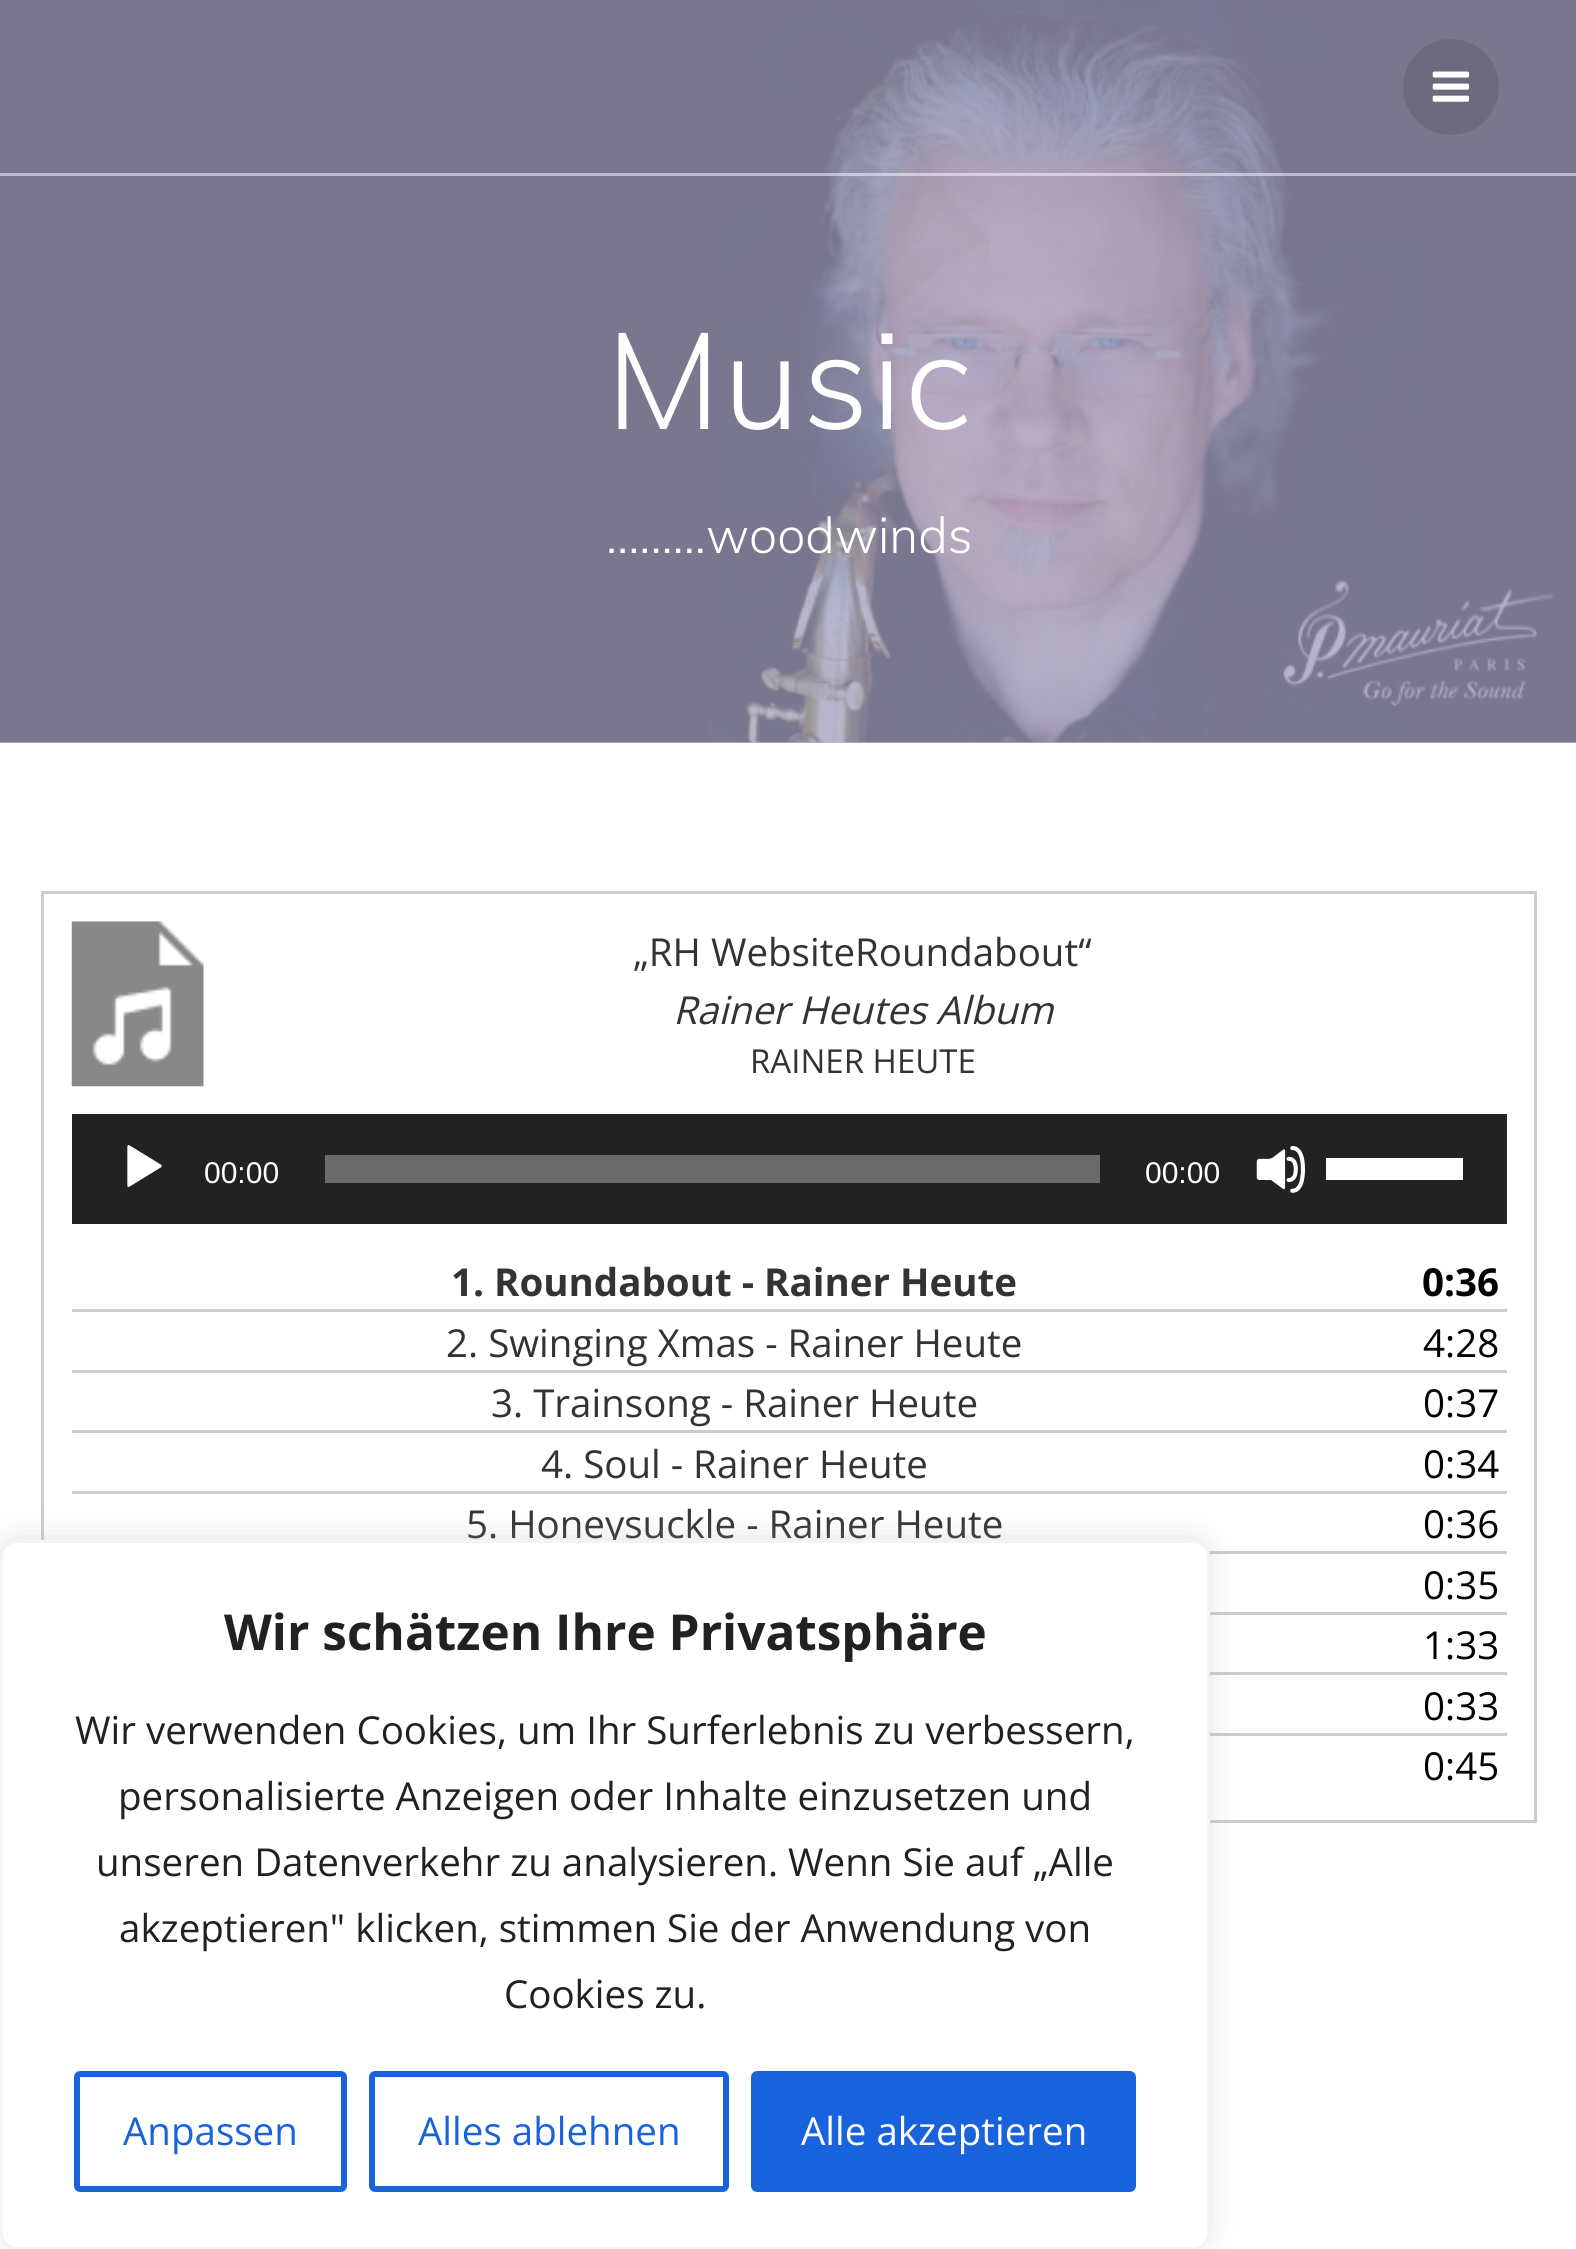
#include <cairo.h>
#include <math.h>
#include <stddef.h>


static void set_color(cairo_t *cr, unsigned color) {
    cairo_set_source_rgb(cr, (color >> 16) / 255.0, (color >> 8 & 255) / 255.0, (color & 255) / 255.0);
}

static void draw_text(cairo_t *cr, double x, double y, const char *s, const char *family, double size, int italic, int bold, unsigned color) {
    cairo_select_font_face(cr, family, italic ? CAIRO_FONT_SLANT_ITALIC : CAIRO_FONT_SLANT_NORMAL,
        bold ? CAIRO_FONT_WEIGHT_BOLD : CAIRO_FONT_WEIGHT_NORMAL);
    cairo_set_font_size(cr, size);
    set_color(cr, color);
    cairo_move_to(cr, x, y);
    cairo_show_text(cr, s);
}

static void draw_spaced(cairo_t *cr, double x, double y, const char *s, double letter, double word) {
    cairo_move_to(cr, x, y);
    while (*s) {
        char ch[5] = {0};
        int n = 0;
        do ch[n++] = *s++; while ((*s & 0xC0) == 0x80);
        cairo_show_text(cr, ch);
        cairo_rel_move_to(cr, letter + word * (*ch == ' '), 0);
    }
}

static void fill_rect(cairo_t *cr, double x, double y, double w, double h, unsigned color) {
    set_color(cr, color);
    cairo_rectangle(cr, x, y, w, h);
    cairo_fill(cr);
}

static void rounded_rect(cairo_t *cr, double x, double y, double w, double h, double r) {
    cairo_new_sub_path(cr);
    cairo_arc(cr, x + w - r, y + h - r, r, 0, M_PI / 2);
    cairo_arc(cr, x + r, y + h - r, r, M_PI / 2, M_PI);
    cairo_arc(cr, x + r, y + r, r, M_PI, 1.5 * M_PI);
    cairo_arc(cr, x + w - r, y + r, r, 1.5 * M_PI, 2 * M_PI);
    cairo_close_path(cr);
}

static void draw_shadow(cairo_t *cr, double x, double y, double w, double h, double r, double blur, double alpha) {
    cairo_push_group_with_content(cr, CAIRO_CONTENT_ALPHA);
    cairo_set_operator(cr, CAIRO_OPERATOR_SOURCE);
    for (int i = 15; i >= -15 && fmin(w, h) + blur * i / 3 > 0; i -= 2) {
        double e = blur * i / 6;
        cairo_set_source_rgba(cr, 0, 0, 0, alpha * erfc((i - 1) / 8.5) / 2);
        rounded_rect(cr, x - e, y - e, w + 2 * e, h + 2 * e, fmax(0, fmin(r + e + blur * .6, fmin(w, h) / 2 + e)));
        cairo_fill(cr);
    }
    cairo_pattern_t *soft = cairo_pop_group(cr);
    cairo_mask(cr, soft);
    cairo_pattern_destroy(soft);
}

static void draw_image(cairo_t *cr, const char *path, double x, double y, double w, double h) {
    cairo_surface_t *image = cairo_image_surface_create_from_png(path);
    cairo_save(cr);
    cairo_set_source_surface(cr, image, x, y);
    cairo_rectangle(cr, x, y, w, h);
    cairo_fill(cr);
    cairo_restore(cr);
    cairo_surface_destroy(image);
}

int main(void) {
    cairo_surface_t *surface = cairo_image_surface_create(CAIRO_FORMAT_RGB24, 1576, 2249);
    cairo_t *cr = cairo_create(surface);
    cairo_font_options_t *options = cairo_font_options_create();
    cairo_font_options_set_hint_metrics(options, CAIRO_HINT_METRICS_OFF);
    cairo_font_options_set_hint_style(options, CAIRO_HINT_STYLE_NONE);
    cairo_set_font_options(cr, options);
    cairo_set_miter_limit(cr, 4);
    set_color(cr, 0xFFFFFF);
    cairo_paint(cr);
    fill_rect(cr, 0, 742, 1576, 1, 0xB9B6CE);
    draw_image(cr, "assets/img2.png", 0, 0, 1576, 743);
    draw_image(cr, "assets/img3.png", 808, 74, 181, 633);
    cairo_set_source_rgba(cr, 1, 1, 1, 0.5);
    cairo_rectangle(cr, 0, 173, 1576, 3);
    cairo_fill(cr);
    set_color(cr, 0x6D6A80);
    cairo_arc(cr, 1451, 87, 48, 0, 2 * M_PI);
    cairo_fill(cr);
    draw_image(cr, "assets/img1.png", 1432, 71, 38, 31);
    cairo_select_font_face(cr, "Muli Light", CAIRO_FONT_SLANT_NORMAL, CAIRO_FONT_WEIGHT_NORMAL);
    cairo_set_font_size(cr, 135);
    set_color(cr, 0xFFFFFF);
    draw_spaced(cr, 606, 429, "Music", 2.5, 0);
    draw_text(cr, 606, 553, ".........woodwinds", "Muli Light", 50, 0, 0, 0xFFFFFF);
    cairo_rectangle(cr, 42.5, 892.5, 1493, 929);
    set_color(cr, 0xCCCCCC);
    cairo_set_line_width(cr, 3);
    cairo_stroke(cr);
    draw_image(cr, "assets/img4.png", 71, 921, 133, 166);
    draw_text(cr, 633, 966, "„RH WebsiteRoundabout“", "Open Sans", 38.5, 0, 0, 0x333333);
    draw_text(cr, 673, 1024, "Rainer Heutes Album", "Open Sans", 38.5, 1, 0, 0x333333);
    draw_text(cr, 750, 1073, "RAINER HEUTE", "Open Sans", 33, 0, 0, 0x333333);
    fill_rect(cr, 72, 1114, 1435, 110, 0x222222);
    draw_image(cr, "assets/img5.png", 127, 1145, 35, 42);
    draw_text(cr, 204, 1183, "00:00", "Liberation Sans", 30, 0, 0, 0xFFFFFF);
    fill_rect(cr, 325, 1155, 775, 28, 0x6B6B6B);
    draw_text(cr, 1145, 1183, "00:00", "Liberation Sans", 30, 0, 0, 0xFFFFFF);
    draw_image(cr, "assets/img6.png", 1256, 1146, 49, 47);
    fill_rect(cr, 1326, 1158, 137, 22, 0xFFFFFF);
    fill_rect(cr, 72, 1309, 1435, 3, 0xCCCCCC);
    draw_text(cr, 451, 1296, "1. Roundabout - Rainer Heute", "Open Sans", 38.5, 0, 1, 0x333333);
    draw_text(cr, 1422, 1296, "0:36", "Open Sans", 38.5, 0, 1, 0x000000);
    fill_rect(cr, 72, 1370, 1435, 3, 0xCCCCCC);
    draw_text(cr, 446, 1357, "2. Swinging Xmas - Rainer Heute", "Open Sans", 38.5, 0, 0, 0x333333);
    draw_text(cr, 1423, 1357, "4:28", "Open Sans", 38.5, 0, 0, 0x000000);
    fill_rect(cr, 72, 1430, 1435, 3, 0xCCCCCC);
    draw_text(cr, 491, 1417, "3. Trainsong - Rainer Heute", "Open Sans", 38.5, 0, 0, 0x333333);
    draw_text(cr, 1423, 1417, "0:37", "Open Sans", 38.5, 0, 0, 0x000000);
    fill_rect(cr, 72, 1491, 1435, 3, 0xCCCCCC);
    draw_text(cr, 541, 1478, "4. Soul - Rainer Heute", "Open Sans", 38.5, 0, 0, 0x333333);
    draw_text(cr, 1423, 1478, "0:34", "Open Sans", 38.5, 0, 0, 0x000000);
    fill_rect(cr, 1208, 1551, 299, 3, 0xCCCCCC);
    draw_text(cr, 466, 1538, "5. Honeysuckle - Rainer Heute", "Open Sans", 38.5, 0, 0, 0x333333);
    draw_text(cr, 1423, 1538, "0:36", "Open Sans", 38.5, 0, 0, 0x000000);
    fill_rect(cr, 1210, 1612, 297, 3, 0xCCCCCC);
    draw_text(cr, 1423, 1599, "0:35", "Open Sans", 38.5, 0, 0, 0x000000);
    fill_rect(cr, 1210, 1672, 297, 3, 0xCCCCCC);
    draw_text(cr, 1423, 1659, "1:33", "Open Sans", 38.5, 0, 0, 0x000000);
    fill_rect(cr, 1210, 1733, 297, 3, 0xCCCCCC);
    draw_text(cr, 1423, 1720, "0:33", "Open Sans", 38.5, 0, 0, 0x000000);
    draw_text(cr, 1423, 1780, "0:45", "Open Sans", 38.5, 0, 0, 0x000000);
    set_color(cr, 0xACABAB);
    draw_shadow(cr, 0, 1537, 1210, 710, 17, 14, 0.3);
    set_color(cr, 0xFFFFFF);
    rounded_rect(cr, 1.5, 1541.5, 1207, 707, 15.5);
    cairo_fill_preserve(cr);
    set_color(cr, 0xF4F4F4);
    cairo_stroke(cr);
    draw_text(cr, 224, 1650, "Wir schätzen Ihre Privatsphäre", "Open Sans", 49.5, 0, 1, 0x212121);
    draw_text(cr, 75, 1744, "Wir verwenden Cookies, um Ihr Surferlebnis zu verbessern,", "Open Sans", 38.5, 0, 0, 0x212121);
    draw_text(cr, 118, 1810, "personalisierte Anzeigen oder Inhalte einzusetzen und", "Open Sans", 38.5, 0, 0, 0x212121);
    draw_text(cr, 96, 1876, "unseren Datenverkehr zu analysieren. Wenn Sie auf „Alle", "Open Sans", 38.5, 0, 0, 0x212121);
    draw_text(cr, 119, 1942, "akzeptieren\" klicken, stimmen Sie der Anwendung von", "Open Sans", 38.5, 0, 0, 0x212121);
    draw_text(cr, 504, 2008, "Cookies zu.", "Open Sans", 38.5, 0, 0, 0x212121);
    rounded_rect(cr, 77, 2074, 267, 115, 3);
    set_color(cr, 0x1863DC);
    cairo_set_line_width(cr, 6);
    cairo_stroke(cr);
    draw_text(cr, 123, 2145, "Anpassen", "Open Sans", 38.5, 0, 0, 0x1863DC);
    rounded_rect(cr, 372, 2074, 354, 115, 3);
    cairo_stroke(cr);
    draw_text(cr, 418, 2145, "Alles ablehnen", "Open Sans", 38.5, 0, 0, 0x1863DC);
    rounded_rect(cr, 754, 2074, 379, 115, 3);
    cairo_fill_preserve(cr);
    cairo_stroke(cr);
    draw_text(cr, 801, 2145, "Alle akzeptieren", "Open Sans", 38.5, 0, 0, 0xFFFFFF);
    cairo_surface_write_to_png(surface, "output.png");
    cairo_font_options_destroy(options);
    cairo_destroy(cr);
    cairo_surface_destroy(surface);
    return 0;
}
